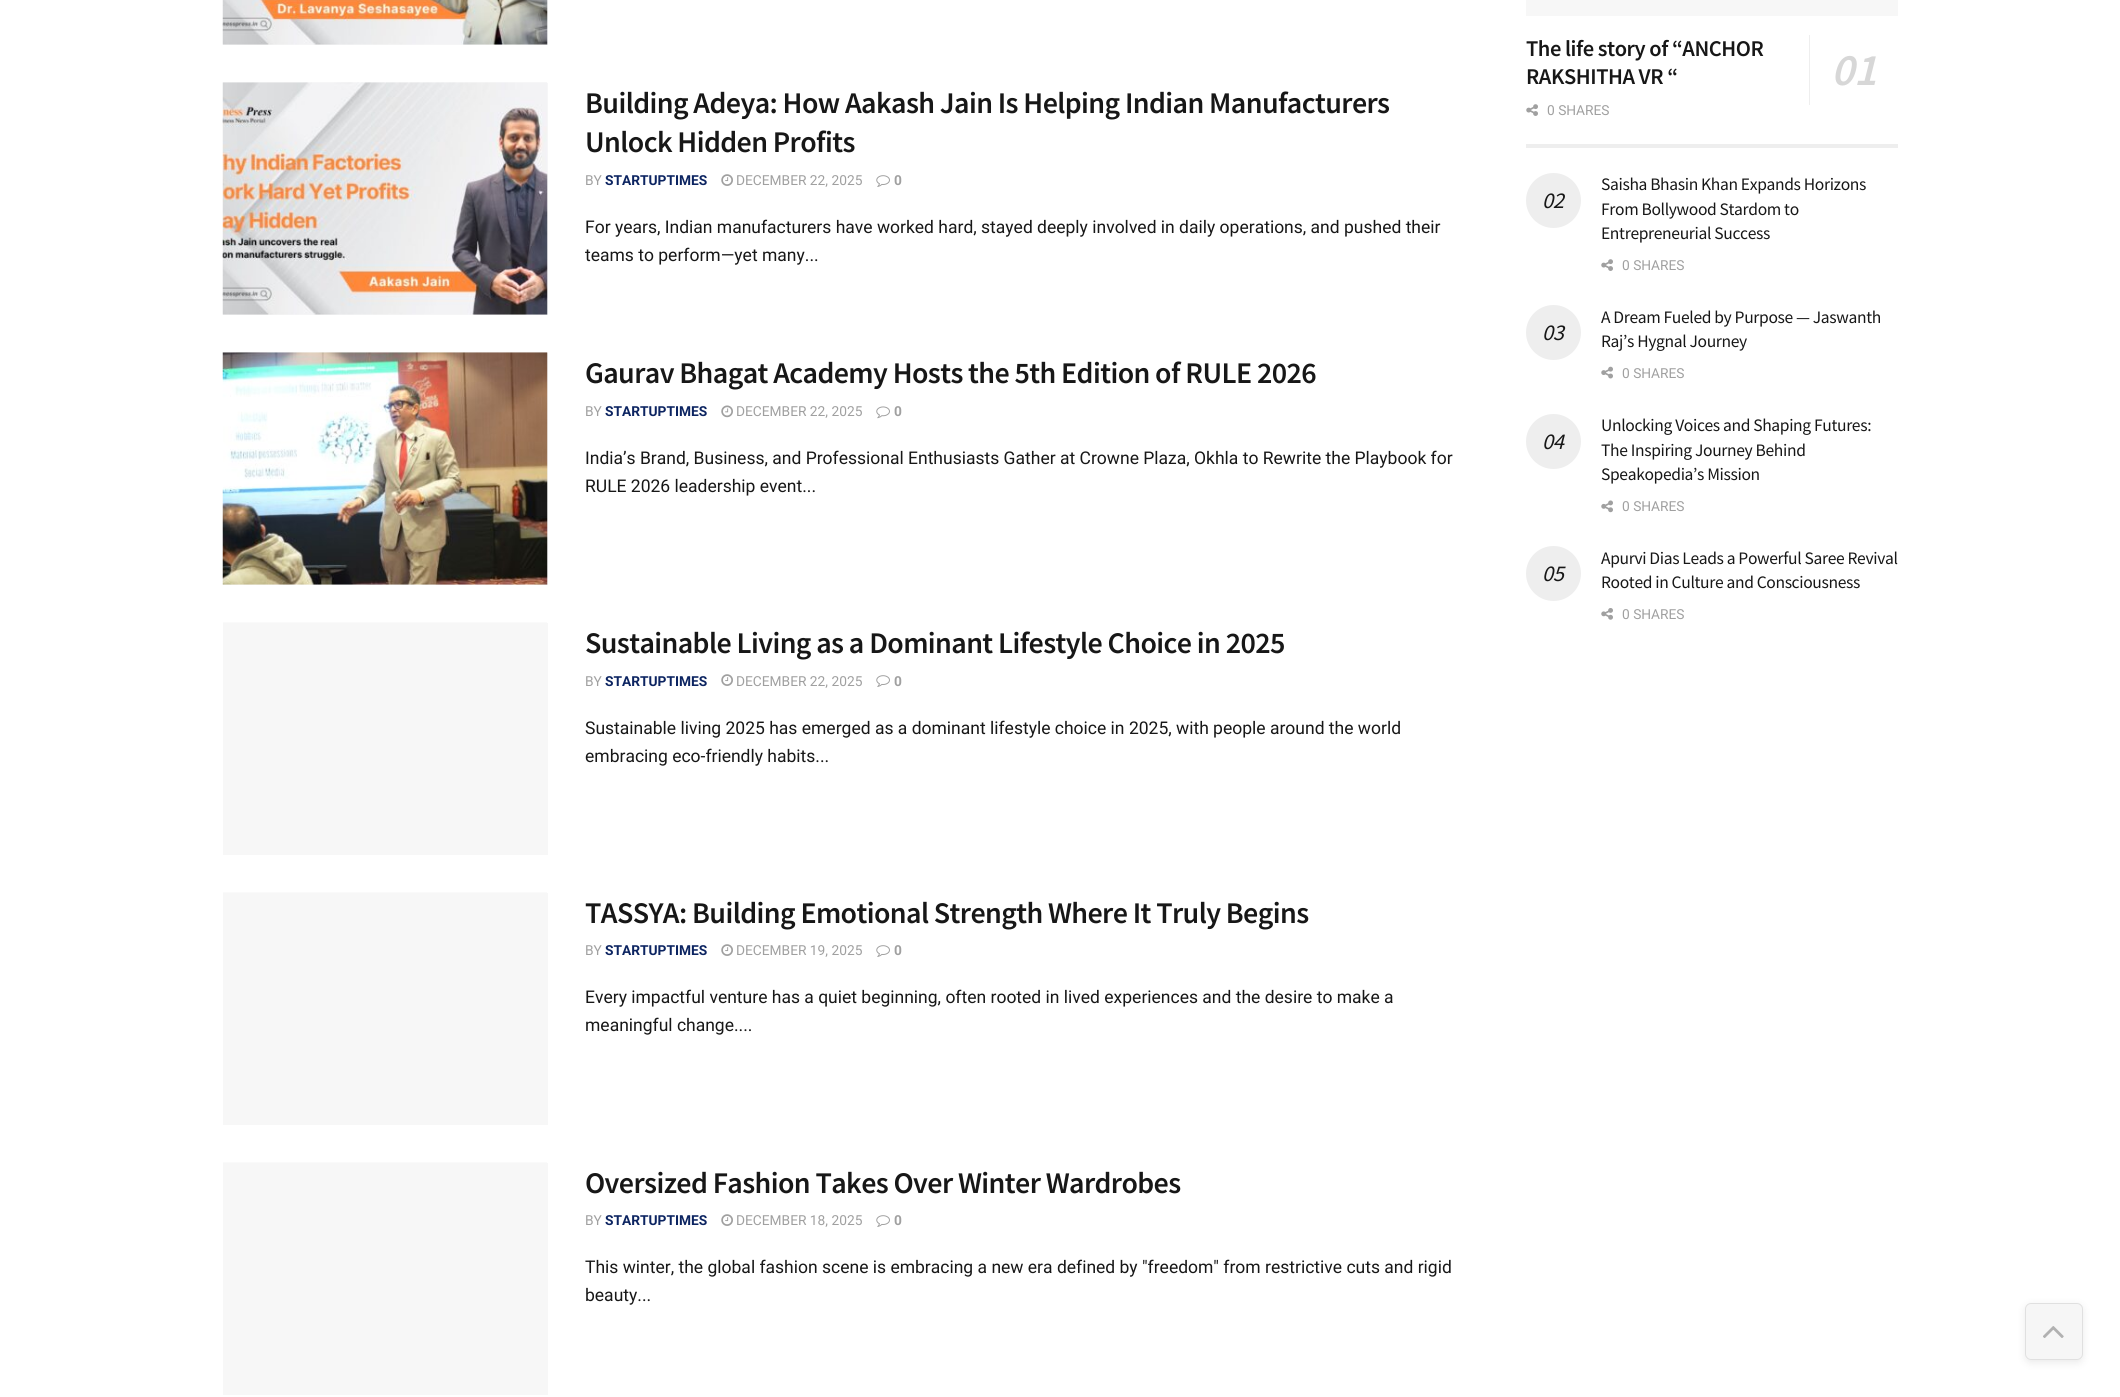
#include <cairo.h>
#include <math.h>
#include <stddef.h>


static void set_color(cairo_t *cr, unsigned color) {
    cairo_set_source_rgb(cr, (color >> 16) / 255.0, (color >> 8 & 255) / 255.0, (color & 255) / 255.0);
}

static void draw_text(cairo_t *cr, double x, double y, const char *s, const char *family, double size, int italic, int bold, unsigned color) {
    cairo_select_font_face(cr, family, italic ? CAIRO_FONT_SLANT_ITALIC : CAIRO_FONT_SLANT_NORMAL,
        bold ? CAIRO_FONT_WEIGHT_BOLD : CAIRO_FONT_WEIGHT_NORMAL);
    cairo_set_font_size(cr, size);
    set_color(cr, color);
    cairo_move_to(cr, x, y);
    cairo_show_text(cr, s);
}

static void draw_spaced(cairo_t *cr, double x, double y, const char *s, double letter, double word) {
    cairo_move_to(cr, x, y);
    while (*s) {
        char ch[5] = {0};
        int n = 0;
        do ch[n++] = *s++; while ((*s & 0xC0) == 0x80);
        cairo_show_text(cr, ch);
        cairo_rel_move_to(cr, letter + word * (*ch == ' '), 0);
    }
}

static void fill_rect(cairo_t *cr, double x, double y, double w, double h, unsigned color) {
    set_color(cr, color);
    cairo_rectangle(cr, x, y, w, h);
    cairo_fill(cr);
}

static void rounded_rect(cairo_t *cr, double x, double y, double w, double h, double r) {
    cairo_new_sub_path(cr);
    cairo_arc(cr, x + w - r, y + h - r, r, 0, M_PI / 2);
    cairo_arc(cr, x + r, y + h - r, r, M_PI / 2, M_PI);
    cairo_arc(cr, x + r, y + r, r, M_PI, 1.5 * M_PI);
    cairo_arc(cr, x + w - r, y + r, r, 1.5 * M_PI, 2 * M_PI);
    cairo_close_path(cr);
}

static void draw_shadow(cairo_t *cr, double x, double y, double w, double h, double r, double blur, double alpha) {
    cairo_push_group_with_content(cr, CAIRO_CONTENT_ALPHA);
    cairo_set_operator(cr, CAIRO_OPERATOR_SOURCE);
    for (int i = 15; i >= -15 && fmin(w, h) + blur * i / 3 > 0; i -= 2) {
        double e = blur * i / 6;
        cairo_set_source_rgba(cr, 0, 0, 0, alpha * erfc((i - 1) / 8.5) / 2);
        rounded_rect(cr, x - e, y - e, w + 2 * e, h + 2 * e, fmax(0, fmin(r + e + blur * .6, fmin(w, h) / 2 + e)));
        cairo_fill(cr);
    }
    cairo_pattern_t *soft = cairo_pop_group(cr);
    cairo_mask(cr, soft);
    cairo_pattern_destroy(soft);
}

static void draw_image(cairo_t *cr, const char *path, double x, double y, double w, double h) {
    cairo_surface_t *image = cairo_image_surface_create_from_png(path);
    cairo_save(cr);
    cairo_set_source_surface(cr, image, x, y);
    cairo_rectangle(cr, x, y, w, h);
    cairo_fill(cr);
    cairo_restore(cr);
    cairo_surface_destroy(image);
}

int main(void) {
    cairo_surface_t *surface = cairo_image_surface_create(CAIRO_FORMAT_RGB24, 2120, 1397);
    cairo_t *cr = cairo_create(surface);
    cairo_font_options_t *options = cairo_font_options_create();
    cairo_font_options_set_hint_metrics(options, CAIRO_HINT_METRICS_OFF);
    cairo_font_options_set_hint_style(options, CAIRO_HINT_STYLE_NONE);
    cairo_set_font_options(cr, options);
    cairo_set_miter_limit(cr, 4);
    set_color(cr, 0xFFFFFF);
    cairo_paint(cr);
    fill_rect(cr, 223, 0, 325, 45, 0xF7F7F7);
    draw_image(cr, "assets/img1.png", 222, 0, 326, 45);
    fill_rect(cr, 223, 83, 325, 232, 0xF7F7F7);
    fill_rect(cr, 223, 82, 324, 1, 0xFAFAFA);
    draw_image(cr, "assets/img2.png", 222, 82, 326, 233);
    cairo_select_font_face(cr, "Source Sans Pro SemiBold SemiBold", CAIRO_FONT_SLANT_NORMAL, CAIRO_FONT_WEIGHT_NORMAL);
    cairo_set_font_size(cr, 30);
    set_color(cr, 0x171717);
    draw_spaced(cr, 585, 113, "Building Adeya: How Aakash Jain Is Helping Indian Manufacturers", -0.6, 0);
    draw_spaced(cr, 585, 152, "Unlock Hidden Profits", -0.6, 0);
    draw_text(cr, 585, 185, "BY", "Roboto", 13.75, 0, 0, 0xA0A0A0);
    draw_text(cr, 605, 185, "STARTUPTIMES", "Roboto", 13.75, 0, 1, 0x0C2461);
    draw_image(cr, "assets/img3.png", 721, 174, 12, 12);
    draw_text(cr, 736, 185, "DECEMBER 22, 2025", "Roboto", 13.75, 0, 0, 0xA0A0A0);
    draw_image(cr, "assets/img4.png", 876, 175, 14, 12);
    draw_text(cr, 894, 185, "0", "Roboto", 13.75, 0, 1, 0xA0A0A0);
    draw_text(cr, 585, 233, "For years, Indian manufacturers have worked hard, stayed deeply involved in daily operations, and pushed their", "Roboto", 17.5, 0, 0, 0x171717);
    draw_text(cr, 585, 261, "teams to perform—yet many...", "Roboto", 17.5, 0, 0, 0x171717);
    fill_rect(cr, 223, 353, 325, 232, 0xF7F7F7);
    fill_rect(cr, 223, 352, 324, 1, 0xFAFAFA);
    draw_image(cr, "assets/img5.png", 222, 352, 326, 233);
    cairo_select_font_face(cr, "Source Sans Pro SemiBold SemiBold", CAIRO_FONT_SLANT_NORMAL, CAIRO_FONT_WEIGHT_NORMAL);
    cairo_set_font_size(cr, 30);
    set_color(cr, 0x171717);
    draw_spaced(cr, 585, 383, "Gaurav Bhagat Academy Hosts the 5th Edition of RULE 2026", -0.6, 0);
    draw_text(cr, 585, 416, "BY", "Roboto", 13.75, 0, 0, 0xA0A0A0);
    draw_text(cr, 605, 416, "STARTUPTIMES", "Roboto", 13.75, 0, 1, 0x0C2461);
    draw_image(cr, "assets/img6.png", 721, 405, 12, 13);
    draw_text(cr, 736, 416, "DECEMBER 22, 2025", "Roboto", 13.75, 0, 0, 0xA0A0A0);
    draw_image(cr, "assets/img7.png", 876, 406, 14, 13);
    draw_text(cr, 894, 416, "0", "Roboto", 13.75, 0, 1, 0xA0A0A0);
    draw_text(cr, 585, 464, "India’s Brand, Business, and Professional Enthusiasts Gather at Crowne Plaza, Okhla to Rewrite the Playbook for", "Roboto", 17.5, 0, 0, 0x171717);
    draw_text(cr, 585, 492, "RULE 2026 leadership event...", "Roboto", 17.5, 0, 0, 0x171717);
    fill_rect(cr, 223, 623, 325, 232, 0xF7F7F7);
    fill_rect(cr, 223, 622, 324, 1, 0xFAFAFA);
    cairo_select_font_face(cr, "Source Sans Pro SemiBold SemiBold", CAIRO_FONT_SLANT_NORMAL, CAIRO_FONT_WEIGHT_NORMAL);
    cairo_set_font_size(cr, 30);
    set_color(cr, 0x171717);
    draw_spaced(cr, 585, 653, "Sustainable Living as a Dominant Lifestyle Choice in 2025", -0.6, 0);
    draw_text(cr, 585, 686, "BY", "Roboto", 13.75, 0, 0, 0xA0A0A0);
    draw_text(cr, 605, 686, "STARTUPTIMES", "Roboto", 13.75, 0, 1, 0x0C2461);
    draw_image(cr, "assets/img3.png", 721, 674, 12, 12);
    draw_text(cr, 736, 686, "DECEMBER 22, 2025", "Roboto", 13.75, 0, 0, 0xA0A0A0);
    draw_image(cr, "assets/img4.png", 876, 675, 14, 12);
    draw_text(cr, 894, 686, "0", "Roboto", 13.75, 0, 1, 0xA0A0A0);
    draw_text(cr, 585, 734, "Sustainable living 2025 has emerged as a dominant lifestyle choice in 2025, with people around the world", "Roboto", 17.5, 0, 0, 0x171717);
    draw_text(cr, 585, 762, "embracing eco-friendly habits...", "Roboto", 17.5, 0, 0, 0x171717);
    fill_rect(cr, 223, 893, 325, 232, 0xF7F7F7);
    fill_rect(cr, 223, 892, 324, 1, 0xFAFAFA);
    cairo_select_font_face(cr, "Source Sans Pro SemiBold SemiBold", CAIRO_FONT_SLANT_NORMAL, CAIRO_FONT_WEIGHT_NORMAL);
    cairo_set_font_size(cr, 30);
    set_color(cr, 0x171717);
    draw_spaced(cr, 585, 923, "TASSYA: Building Emotional Strength Where It Truly Begins", -0.6, 0);
    draw_text(cr, 585, 955, "BY", "Roboto", 13.75, 0, 0, 0xA0A0A0);
    draw_text(cr, 605, 955, "STARTUPTIMES", "Roboto", 13.75, 0, 1, 0x0C2461);
    draw_image(cr, "assets/img3.png", 721, 944, 12, 12);
    draw_text(cr, 736, 955, "DECEMBER 19, 2025", "Roboto", 13.75, 0, 0, 0xA0A0A0);
    draw_image(cr, "assets/img4.png", 876, 945, 14, 12);
    draw_text(cr, 894, 955, "0", "Roboto", 13.75, 0, 1, 0xA0A0A0);
    draw_text(cr, 585, 1003, "Every impactful venture has a quiet beginning, often rooted in lived experiences and the desire to make a", "Roboto", 17.5, 0, 0, 0x171717);
    draw_text(cr, 585, 1031, "meaningful change....", "Roboto", 17.5, 0, 0, 0x171717);
    fill_rect(cr, 223, 1163, 325, 232, 0xF7F7F7);
    fill_rect(cr, 223, 1162, 324, 1, 0xFAFAFA);
    cairo_select_font_face(cr, "Source Sans Pro SemiBold SemiBold", CAIRO_FONT_SLANT_NORMAL, CAIRO_FONT_WEIGHT_NORMAL);
    cairo_set_font_size(cr, 30);
    set_color(cr, 0x171717);
    draw_spaced(cr, 585, 1193, "Oversized Fashion Takes Over Winter Wardrobes", -0.6, 0);
    draw_text(cr, 585, 1225, "BY", "Roboto", 13.75, 0, 0, 0xA0A0A0);
    draw_text(cr, 605, 1225, "STARTUPTIMES", "Roboto", 13.75, 0, 1, 0x0C2461);
    draw_image(cr, "assets/img3.png", 721, 1214, 12, 12);
    draw_text(cr, 736, 1225, "DECEMBER 18, 2025", "Roboto", 13.75, 0, 0, 0xA0A0A0);
    draw_image(cr, "assets/img4.png", 876, 1215, 14, 12);
    draw_text(cr, 894, 1225, "0", "Roboto", 13.75, 0, 1, 0xA0A0A0);
    draw_text(cr, 585, 1273, "This winter, the global fashion scene is embracing a new era defined by \"freedom\" from restrictive cuts and rigid", "Roboto", 17.5, 0, 0, 0x171717);
    draw_text(cr, 585, 1301, "beauty...", "Roboto", 17.5, 0, 0, 0x171717);
    fill_rect(cr, 1526, 144, 372, 4, 0xEEEEEE);
    fill_rect(cr, 1526, 0, 372, 16, 0xF7F7F7);
    cairo_select_font_face(cr, "Source Sans Pro SemiBold SemiBold", CAIRO_FONT_SLANT_NORMAL, CAIRO_FONT_WEIGHT_NORMAL);
    cairo_set_font_size(cr, 22.5);
    set_color(cr, 0x171717);
    draw_spaced(cr, 1526, 56, "The life story of “ANCHOR", -0.45, 0);
    draw_spaced(cr, 1526, 84, "RAKSHITHA VR “", -0.45, 0);
    fill_rect(cr, 1809, 35, 1, 70, 0xEEEEEE);
    cairo_select_font_face(cr, "Source Sans Pro SemiBold SemiBold", CAIRO_FONT_SLANT_ITALIC, CAIRO_FONT_WEIGHT_NORMAL);
    cairo_set_font_size(cr, 45);
    set_color(cr, 0xD7D7D7);
    draw_spaced(cr, 1831, 85, "01", -0.45, 0);
    draw_image(cr, "assets/img8.png", 1526, 104, 12, 12);
    draw_text(cr, 1547, 115, "0 SHARES", "Roboto", 13.75, 0, 0, 0xA0A0A0);
    cairo_select_font_face(cr, "Source Sans Pro", CAIRO_FONT_SLANT_NORMAL, CAIRO_FONT_WEIGHT_NORMAL);
    cairo_set_font_size(cr, 17.5);
    set_color(cr, 0x171717);
    draw_spaced(cr, 1601, 190, "Saisha Bhasin Khan Expands Horizons", -0.35, 0);
    set_color(cr, 0xEEEEEE);
    cairo_new_path(cr);
    cairo_arc(cr, 1553.5, 200.5, 27.5, 0, 2 * M_PI);
    cairo_fill(cr);
    cairo_select_font_face(cr, "Source Sans Pro", CAIRO_FONT_SLANT_ITALIC, CAIRO_FONT_WEIGHT_NORMAL);
    cairo_set_font_size(cr, 22.5);
    set_color(cr, 0x171717);
    draw_spaced(cr, 1542, 208, "02", -0.35, 0);
    cairo_select_font_face(cr, "Source Sans Pro", CAIRO_FONT_SLANT_NORMAL, CAIRO_FONT_WEIGHT_NORMAL);
    cairo_set_font_size(cr, 17.5);
    draw_spaced(cr, 1601, 215, "From Bollywood Stardom to", -0.35, 0);
    draw_spaced(cr, 1601, 239, "Entrepreneurial Success", -0.35, 0);
    draw_image(cr, "assets/img8.png", 1601, 259, 12, 12);
    draw_text(cr, 1622, 270, "0 SHARES", "Roboto", 13.75, 0, 0, 0xA0A0A0);
    cairo_select_font_face(cr, "Source Sans Pro", CAIRO_FONT_SLANT_NORMAL, CAIRO_FONT_WEIGHT_NORMAL);
    cairo_set_font_size(cr, 17.5);
    set_color(cr, 0x171717);
    draw_spaced(cr, 1601, 323, "A Dream Fueled by Purpose — Jaswanth", -0.35, 0);
    set_color(cr, 0xEEEEEE);
    cairo_new_path(cr);
    cairo_arc(cr, 1553.5, 332.5, 27.5, 0, 2 * M_PI);
    cairo_fill(cr);
    cairo_select_font_face(cr, "Source Sans Pro", CAIRO_FONT_SLANT_ITALIC, CAIRO_FONT_WEIGHT_NORMAL);
    cairo_set_font_size(cr, 22.5);
    set_color(cr, 0x171717);
    draw_spaced(cr, 1542, 340, "03", -0.35, 0);
    cairo_select_font_face(cr, "Source Sans Pro", CAIRO_FONT_SLANT_NORMAL, CAIRO_FONT_WEIGHT_NORMAL);
    cairo_set_font_size(cr, 17.5);
    draw_spaced(cr, 1601, 347, "Raj’s Hygnal Journey", -0.35, 0);
    draw_image(cr, "assets/img9.png", 1601, 366, 12, 13);
    draw_text(cr, 1622, 378, "0 SHARES", "Roboto", 13.75, 0, 0, 0xA0A0A0);
    cairo_select_font_face(cr, "Source Sans Pro", CAIRO_FONT_SLANT_NORMAL, CAIRO_FONT_WEIGHT_NORMAL);
    cairo_set_font_size(cr, 17.5);
    set_color(cr, 0x171717);
    draw_spaced(cr, 1601, 431, "Unlocking Voices and Shaping Futures:", -0.35, 0);
    set_color(cr, 0xEEEEEE);
    cairo_new_path(cr);
    cairo_arc(cr, 1553.5, 441.5, 27.5, 0, 2 * M_PI);
    cairo_fill(cr);
    cairo_select_font_face(cr, "Source Sans Pro", CAIRO_FONT_SLANT_ITALIC, CAIRO_FONT_WEIGHT_NORMAL);
    cairo_set_font_size(cr, 22.5);
    set_color(cr, 0x171717);
    draw_spaced(cr, 1542, 449, "04", -0.35, 0);
    cairo_select_font_face(cr, "Source Sans Pro", CAIRO_FONT_SLANT_NORMAL, CAIRO_FONT_WEIGHT_NORMAL);
    cairo_set_font_size(cr, 17.5);
    draw_spaced(cr, 1601, 456, "The Inspiring Journey Behind", -0.35, 0);
    draw_spaced(cr, 1601, 480, "Speakopedia’s Mission", -0.35, 0);
    draw_image(cr, "assets/img10.png", 1601, 500, 12, 13);
    draw_text(cr, 1622, 511, "0 SHARES", "Roboto", 13.75, 0, 0, 0xA0A0A0);
    cairo_select_font_face(cr, "Source Sans Pro", CAIRO_FONT_SLANT_NORMAL, CAIRO_FONT_WEIGHT_NORMAL);
    cairo_set_font_size(cr, 17.5);
    set_color(cr, 0x171717);
    draw_spaced(cr, 1601, 564, "Apurvi Dias Leads a Powerful Saree Revival", -0.35, 0);
    set_color(cr, 0xEEEEEE);
    cairo_new_path(cr);
    cairo_arc(cr, 1553.5, 573.5, 27.5, 0, 2 * M_PI);
    cairo_fill(cr);
    cairo_select_font_face(cr, "Source Sans Pro", CAIRO_FONT_SLANT_ITALIC, CAIRO_FONT_WEIGHT_NORMAL);
    cairo_set_font_size(cr, 22.5);
    set_color(cr, 0x171717);
    draw_spaced(cr, 1542, 581, "05", -0.35, 0);
    cairo_select_font_face(cr, "Source Sans Pro", CAIRO_FONT_SLANT_NORMAL, CAIRO_FONT_WEIGHT_NORMAL);
    cairo_set_font_size(cr, 17.5);
    draw_spaced(cr, 1601, 588, "Rooted in Culture and Consciousness", -0.35, 0);
    draw_image(cr, "assets/img11.png", 1601, 608, 12, 12);
    draw_text(cr, 1622, 619, "0 SHARES", "Roboto", 13.75, 0, 0, 0xA0A0A0);
    cairo_save(cr);
    cairo_set_fill_rule(cr, CAIRO_FILL_RULE_EVEN_ODD);
    cairo_new_path(cr);
    cairo_move_to(cr, 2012, 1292);
    cairo_line_to(cr, 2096, 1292);
    cairo_line_to(cr, 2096, 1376);
    cairo_line_to(cr, 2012, 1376);
    cairo_close_path(cr);
    cairo_move_to(cr, 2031, 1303);
    cairo_line_to(cr, 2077, 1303);
    cairo_curve_to(cr, 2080.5, 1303, 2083, 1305.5, 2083, 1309);
    cairo_line_to(cr, 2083, 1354);
    cairo_curve_to(cr, 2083, 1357.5, 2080.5, 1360, 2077, 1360);
    cairo_line_to(cr, 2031, 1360);
    cairo_curve_to(cr, 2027.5, 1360, 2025, 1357.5, 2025, 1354);
    cairo_line_to(cr, 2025, 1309);
    cairo_curve_to(cr, 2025, 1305.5, 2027.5, 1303, 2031, 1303);
    cairo_close_path(cr);
    cairo_clip(cr);
    set_color(cr, 0x333333);
    draw_shadow(cr, 2025, 1305, 58, 58, 6, 4, 0.1);
    cairo_restore(cr);
    cairo_set_source_rgba(cr, 0.769, 0.769, 0.769, 0.15);
    rounded_rect(cr, 2025, 1303, 58, 57, 6);
    cairo_fill(cr);
    rounded_rect(cr, 2025.5, 1303.5, 57, 56, 5.5);
    cairo_set_source_rgba(cr, 0.2, 0.2, 0.2, 0.11);
    cairo_set_line_width(cr, 1);
    cairo_stroke(cr);
    draw_image(cr, "assets/img12.png", 2043, 1326, 21, 12);
    cairo_surface_write_to_png(surface, "output.png");
    cairo_font_options_destroy(options);
    cairo_destroy(cr);
    cairo_surface_destroy(surface);
    return 0;
}
